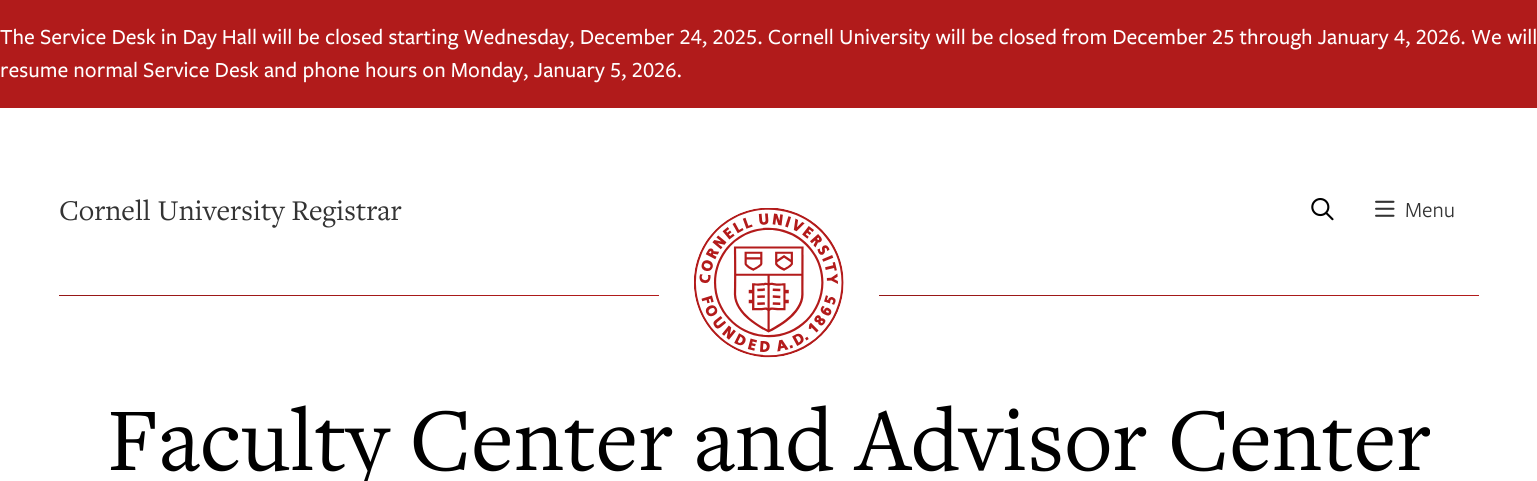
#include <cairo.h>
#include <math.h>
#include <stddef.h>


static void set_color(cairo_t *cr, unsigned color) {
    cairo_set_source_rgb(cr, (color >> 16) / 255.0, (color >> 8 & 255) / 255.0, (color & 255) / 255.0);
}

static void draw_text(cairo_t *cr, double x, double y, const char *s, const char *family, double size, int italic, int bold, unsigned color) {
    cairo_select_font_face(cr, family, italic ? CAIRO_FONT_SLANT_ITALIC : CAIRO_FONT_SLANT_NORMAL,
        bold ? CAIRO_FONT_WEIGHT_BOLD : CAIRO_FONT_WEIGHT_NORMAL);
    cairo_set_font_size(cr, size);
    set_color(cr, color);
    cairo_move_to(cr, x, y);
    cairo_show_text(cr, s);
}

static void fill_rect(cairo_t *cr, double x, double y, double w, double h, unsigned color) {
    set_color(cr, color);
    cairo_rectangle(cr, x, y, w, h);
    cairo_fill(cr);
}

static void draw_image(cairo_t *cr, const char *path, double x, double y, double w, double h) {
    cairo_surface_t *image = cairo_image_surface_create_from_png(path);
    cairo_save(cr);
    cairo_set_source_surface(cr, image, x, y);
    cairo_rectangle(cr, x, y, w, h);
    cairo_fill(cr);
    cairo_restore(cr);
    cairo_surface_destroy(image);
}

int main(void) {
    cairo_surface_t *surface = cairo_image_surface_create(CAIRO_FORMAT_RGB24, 1537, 481);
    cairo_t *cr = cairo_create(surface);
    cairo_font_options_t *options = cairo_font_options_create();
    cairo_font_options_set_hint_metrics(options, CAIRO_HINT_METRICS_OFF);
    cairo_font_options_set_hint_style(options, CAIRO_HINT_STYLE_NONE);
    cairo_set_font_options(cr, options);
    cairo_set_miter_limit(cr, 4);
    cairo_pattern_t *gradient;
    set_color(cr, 0xFFFFFF);
    cairo_paint(cr);
    fill_rect(cr, 0, 0, 1537, 108, 0xB11B1B);
    draw_text(cr, 0, 44, "The Service Desk in Day Hall will be closed starting Wednesday, December 24, 2025. Cornell University will be closed from December 25 through January 4, 2026. We will", "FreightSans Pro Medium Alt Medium", 22.35, 0, 0, 0xFFFFFF);
    draw_text(cr, 0, 77, "resume normal Service Desk and phone hours on Monday, January 5, 2026.", "FreightSans Pro Medium Alt Medium", 22.35, 0, 0, 0xFFFFFF);
    draw_text(cr, 59, 220, "Cornell University Registrar", "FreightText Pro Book", 29.75, 0, 0, 0x333333);
    draw_image(cr, "assets/img1.png", 1311, 198, 23, 23);
    draw_image(cr, "assets/img2.png", 1375, 200, 20, 17);
    draw_text(cr, 1405, 217, "Menu", "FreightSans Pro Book", 22.35, 0, 0, 0x333333);
    gradient = cairo_pattern_create_linear(59, 296, 659, 296);
    cairo_pattern_add_color_stop_rgba(gradient, 0, 0.588, 0.09, 0.09, 1);
    cairo_pattern_add_color_stop_rgba(gradient, 1, 0.702, 0.106, 0.106, 1);
    cairo_set_source(cr, gradient);
    cairo_pattern_destroy(gradient);
    cairo_rectangle(cr, 59, 295, 600, 1);
    cairo_fill(cr);
    draw_image(cr, "assets/img3.png", 694, 208, 150, 150);
    gradient = cairo_pattern_create_linear(879, 296, 1479, 296);
    cairo_pattern_add_color_stop_rgba(gradient, 0, 0.588, 0.09, 0.09, 1);
    cairo_pattern_add_color_stop_rgba(gradient, 1, 0.702, 0.106, 0.106, 1);
    cairo_set_source(cr, gradient);
    cairo_pattern_destroy(gradient);
    cairo_rectangle(cr, 879, 295, 600, 1);
    cairo_fill(cr);
    draw_text(cr, 107, 470, "Faculty Center and Advisor Center", "FreightText Pro Book", 92.8, 0, 0, 0x000000);
    cairo_surface_write_to_png(surface, "output.png");
    cairo_font_options_destroy(options);
    cairo_destroy(cr);
    cairo_surface_destroy(surface);
    return 0;
}
